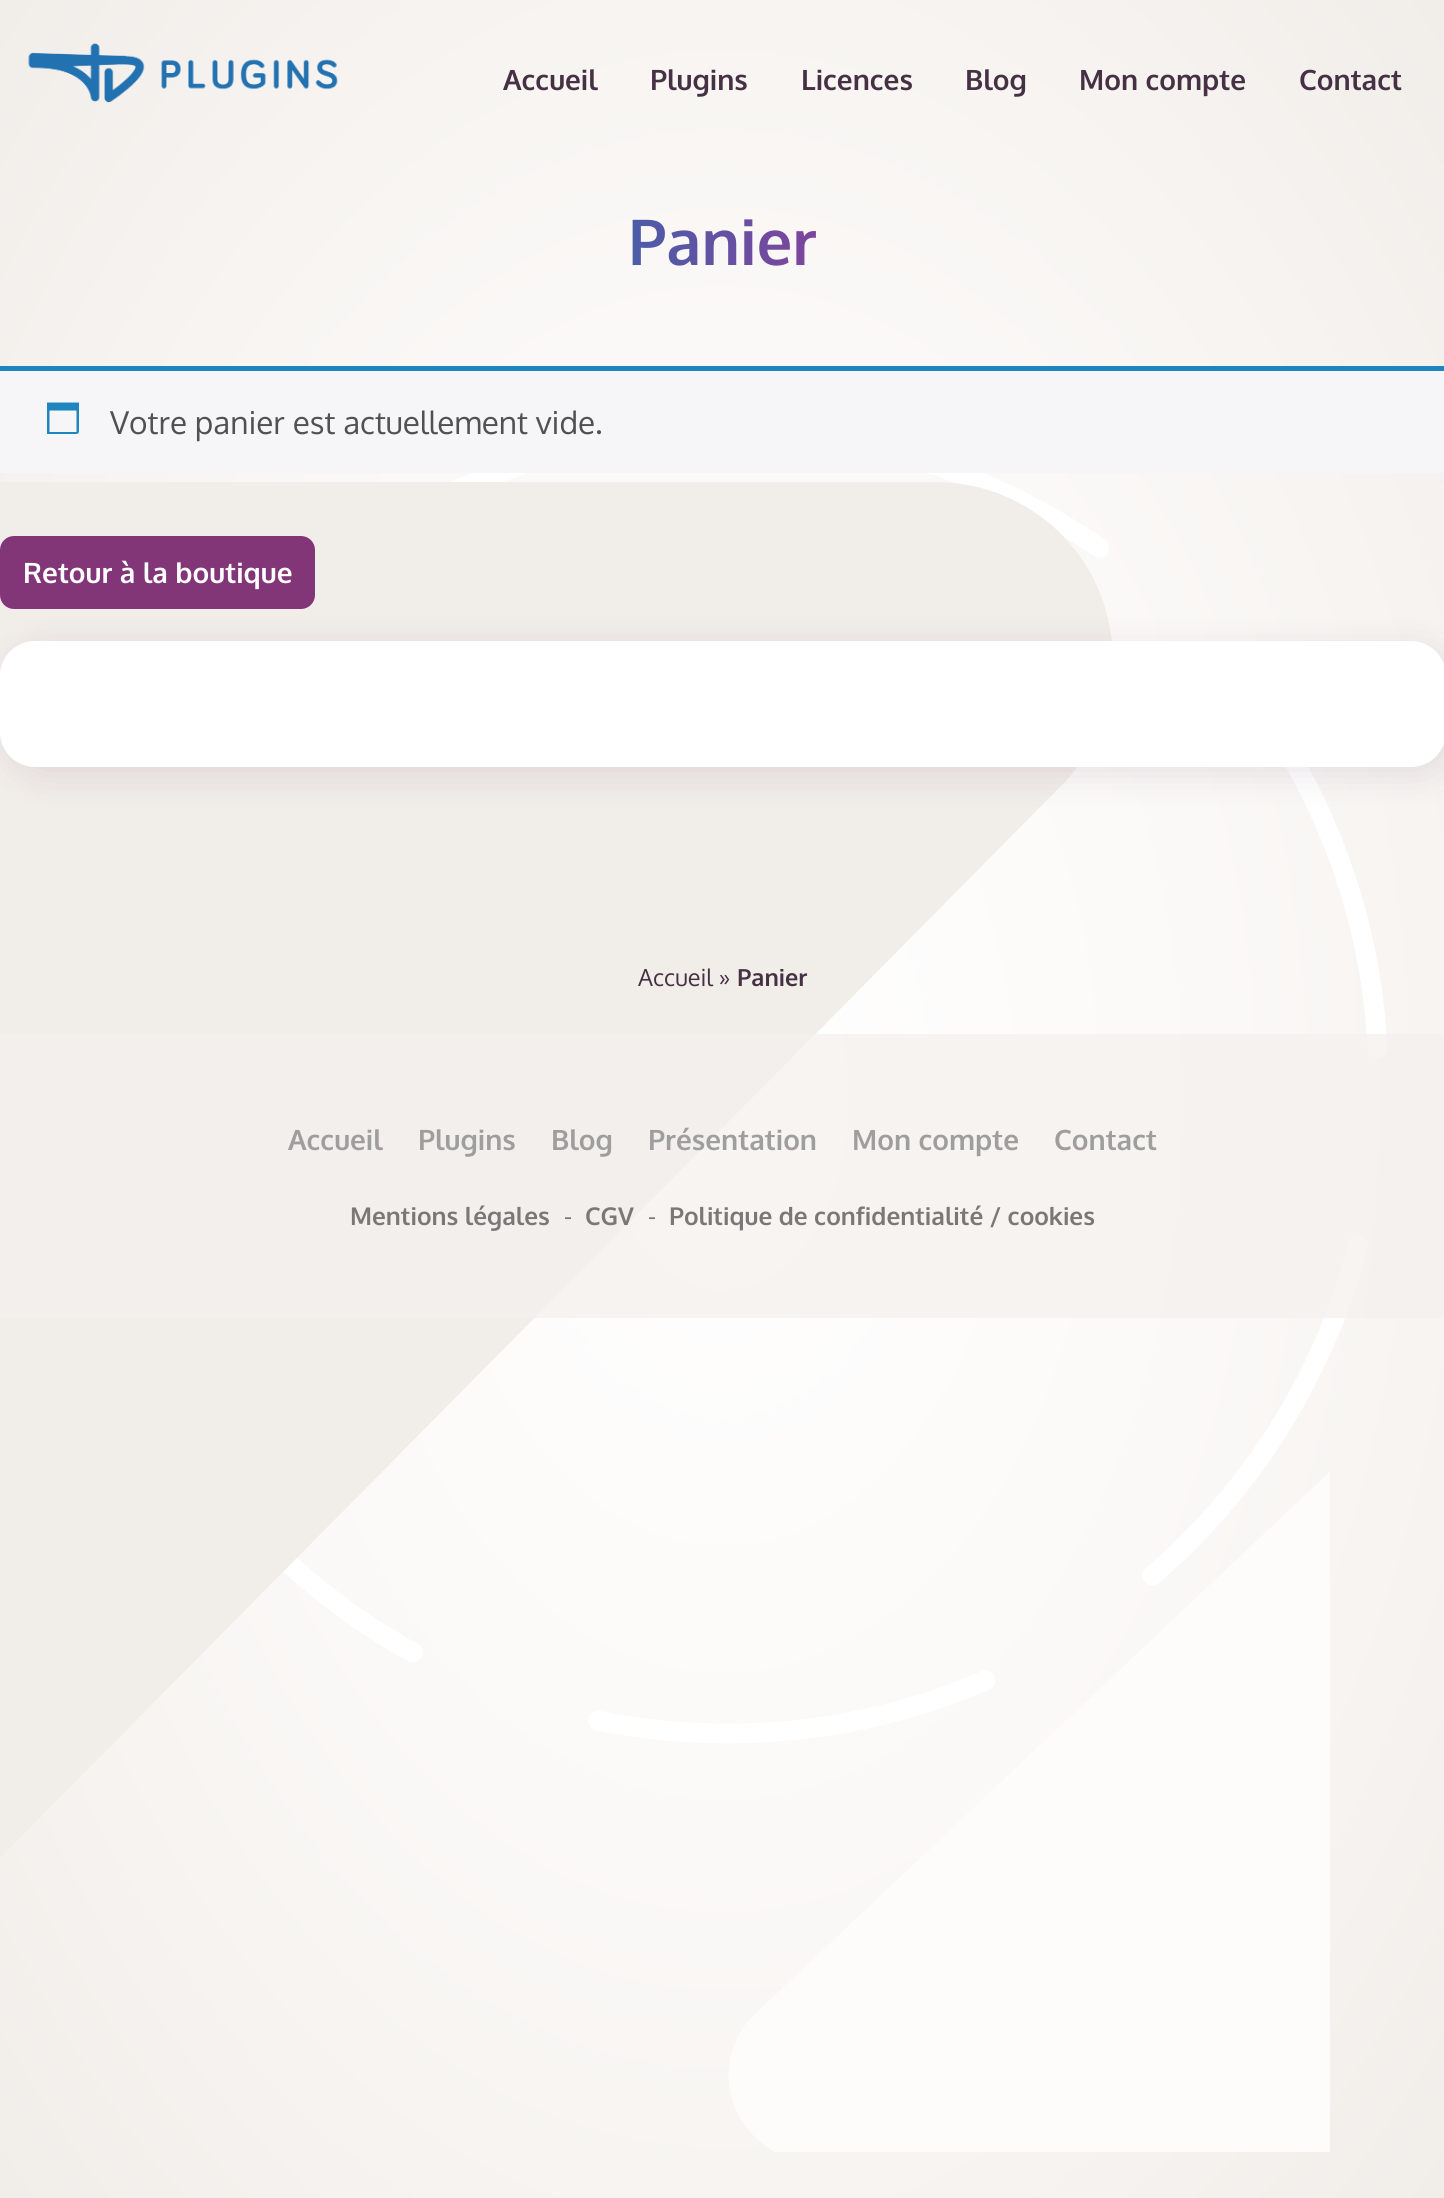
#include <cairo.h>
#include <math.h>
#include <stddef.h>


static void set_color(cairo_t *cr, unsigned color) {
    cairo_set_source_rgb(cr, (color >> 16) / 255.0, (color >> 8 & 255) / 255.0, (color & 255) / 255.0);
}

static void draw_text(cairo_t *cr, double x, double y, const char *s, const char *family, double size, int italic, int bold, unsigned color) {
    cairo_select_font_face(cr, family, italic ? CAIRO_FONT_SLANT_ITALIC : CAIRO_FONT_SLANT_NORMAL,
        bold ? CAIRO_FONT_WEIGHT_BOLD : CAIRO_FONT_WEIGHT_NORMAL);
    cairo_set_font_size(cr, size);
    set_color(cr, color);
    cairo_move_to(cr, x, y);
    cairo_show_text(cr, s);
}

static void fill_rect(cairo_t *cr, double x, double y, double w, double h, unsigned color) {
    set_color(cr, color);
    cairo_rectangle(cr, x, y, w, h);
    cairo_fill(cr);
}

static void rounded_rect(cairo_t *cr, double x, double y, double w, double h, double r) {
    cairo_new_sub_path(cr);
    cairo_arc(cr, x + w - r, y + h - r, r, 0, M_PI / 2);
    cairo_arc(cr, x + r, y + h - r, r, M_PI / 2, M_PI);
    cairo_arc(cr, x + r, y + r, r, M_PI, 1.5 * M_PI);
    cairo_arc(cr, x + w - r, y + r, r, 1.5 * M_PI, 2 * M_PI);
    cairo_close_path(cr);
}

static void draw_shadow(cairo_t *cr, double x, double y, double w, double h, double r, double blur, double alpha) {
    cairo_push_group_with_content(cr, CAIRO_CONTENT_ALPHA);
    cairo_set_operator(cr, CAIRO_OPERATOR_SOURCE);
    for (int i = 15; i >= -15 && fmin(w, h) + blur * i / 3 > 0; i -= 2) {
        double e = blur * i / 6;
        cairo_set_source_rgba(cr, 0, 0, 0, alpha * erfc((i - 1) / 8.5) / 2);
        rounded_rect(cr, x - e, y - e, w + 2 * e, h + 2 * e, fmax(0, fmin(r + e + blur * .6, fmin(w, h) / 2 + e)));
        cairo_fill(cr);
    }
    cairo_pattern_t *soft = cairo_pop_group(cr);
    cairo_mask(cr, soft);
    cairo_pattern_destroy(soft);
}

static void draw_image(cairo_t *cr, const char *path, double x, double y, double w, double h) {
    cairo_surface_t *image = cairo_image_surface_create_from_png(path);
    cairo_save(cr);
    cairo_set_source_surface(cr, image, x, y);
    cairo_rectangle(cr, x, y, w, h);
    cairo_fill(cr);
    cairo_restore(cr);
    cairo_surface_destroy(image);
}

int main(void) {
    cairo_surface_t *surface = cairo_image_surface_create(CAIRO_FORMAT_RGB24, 1444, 2198);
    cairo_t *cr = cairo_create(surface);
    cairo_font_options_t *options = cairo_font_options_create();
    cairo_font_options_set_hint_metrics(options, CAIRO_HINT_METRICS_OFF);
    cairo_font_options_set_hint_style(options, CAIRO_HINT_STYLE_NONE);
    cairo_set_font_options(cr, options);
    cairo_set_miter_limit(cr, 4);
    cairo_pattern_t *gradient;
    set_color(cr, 0xFFFFFF);
    cairo_paint(cr);
    gradient = cairo_pattern_create_radial(0, 0, 0, 0, 0, 1);
    cairo_pattern_set_matrix(gradient, &(cairo_matrix_t){1.0 / 1022, 0, 0, 1.0 / 1554, -1.0 * 723 / 1022, -1.0 * 1099 / 1554});
    cairo_pattern_add_color_stop_rgba(gradient, 0, 1, 1, 1, 1);
    cairo_pattern_add_color_stop_rgba(gradient, 0.5, 0.984, 0.976, 0.969, 1);
    cairo_pattern_add_color_stop_rgba(gradient, 1, 0.945, 0.929, 0.914, 1);
    cairo_set_source(cr, gradient);
    cairo_pattern_destroy(gradient);
    cairo_rectangle(cr, 0, 0, 1444, 2198);
    cairo_fill(cr);
    draw_image(cr, "assets/img1.png", 28, 43, 310, 60);
    draw_text(cr, 503, 90, "Accueil", "Oxygen", 28, 0, 1, 0x463144);
    draw_text(cr, 650, 90, "Plugins", "Oxygen", 28, 0, 1, 0x463144);
    draw_text(cr, 801, 90, "Licences", "Oxygen", 28, 0, 1, 0x463144);
    draw_text(cr, 965, 90, "Blog", "Oxygen", 28, 0, 1, 0x463144);
    draw_text(cr, 1079, 90, "Mon compte", "Oxygen", 28, 0, 1, 0x463144);
    draw_text(cr, 1299, 90, "Contact", "Oxygen", 28, 0, 1, 0x463144);
    cairo_set_font_size(cr, 63);
    gradient = cairo_pattern_create_linear(0, 217, 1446, 217);
    cairo_pattern_add_color_stop_rgba(gradient, 0.33, 0.133, 0.443, 0.694, 1);
    cairo_pattern_add_color_stop_rgba(gradient, 0.66, 0.639, 0.2, 0.576, 1);
    cairo_set_source(cr, gradient);
    cairo_pattern_destroy(gradient);
    cairo_move_to(cr, 628, 265);
    cairo_show_text(cr, "Panier");
    cairo_new_path(cr);
    cairo_move_to(cr, 727.5, 431.5);
    cairo_curve_to(cr, 1087, 431.5, 1378.5, 723, 1378.5, 1082.5);
    cairo_curve_to(cr, 1378.5, 1442, 1087, 1733.5, 727.5, 1733.5);
    cairo_curve_to(cr, 368, 1733.5, 76.5, 1442, 76.5, 1082.5);
    cairo_curve_to(cr, 76.5, 723, 368, 431.5, 727.5, 431.5);
    cairo_close_path(cr);
    set_color(cr, 0xFFFFFF);
    cairo_set_line_width(cr, 19.8);
    cairo_set_line_cap(cr, CAIRO_LINE_CAP_ROUND);
    cairo_set_line_join(cr, CAIRO_LINE_JOIN_ROUND);
    cairo_set_dash(cr, (double[]){395.6, 197.8, 0, 0}, 4, 0);
    cairo_stroke(cr);
    fill_rect(cr, 0, 371, 1444, 102, 0xF6F5F8);
    fill_rect(cr, 0, 366, 1444, 5, 0x1E85BE);
    cairo_new_path(cr);
    cairo_move_to(cr, 76.5, 410.5);
    cairo_line_to(cr, 49.5, 410.5);
    cairo_line_to(cr, 49.5, 432);
    cairo_line_to(cr, 76.5, 432);
    cairo_close_path(cr);
    cairo_move_to(cr, 79, 402.5);
    cairo_line_to(cr, 79, 427);
    cairo_curve_to(cr, 79, 434.5, 79.5, 434, 71.5, 434);
    cairo_line_to(cr, 47, 434);
    cairo_line_to(cr, 47, 402.5);
    cairo_close_path(cr);
    cairo_fill(cr);
    draw_text(cr, 110, 434, "Votre panier est actuellement vide.", "Oxygen", 31.5, 0, 0, 0x515151);
    cairo_save(cr);
    cairo_rectangle(cr, 683, 1421, 647, 731);
    cairo_clip(cr);
    set_color(cr, 0xFDFCFB);
    cairo_set_fill_rule(cr, CAIRO_FILL_RULE_EVEN_ODD);
    cairo_new_path(cr);
    cairo_move_to(cr, 1339, 1463);
    cairo_line_to(cr, 1339, 2165);
    cairo_line_to(cr, 824, 2165);
    cairo_curve_to(cr, 785, 2165, 751, 2143, 736, 2110);
    cairo_curve_to(cr, 721, 2077, 729, 2038, 756, 2013);
    cairo_close_path(cr);
    cairo_fill(cr);
    cairo_restore(cr);
    set_color(cr, 0xF1EDE9);
    cairo_set_fill_rule(cr, CAIRO_FILL_RULE_EVEN_ODD);
    cairo_new_path(cr);
    cairo_move_to(cr, -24, 1882);
    cairo_line_to(cr, -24, 482);
    cairo_line_to(cr, 935, 482);
    cairo_curve_to(cr, 1007, 482, 1072, 525, 1099, 591);
    cairo_curve_to(cr, 1127, 657, 1112, 734, 1062, 785);
    cairo_close_path(cr);
    cairo_fill(cr);
    set_color(cr, 0x320032);
    draw_shadow(cr, 9, 649, 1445, 126, 35, 17.5, 0.1);
    set_color(cr, 0x823577);
    rounded_rect(cr, 1, 537, 313, 71, 13);
    cairo_fill_preserve(cr);
    cairo_set_line_width(cr, 2);
    cairo_set_line_cap(cr, CAIRO_LINE_CAP_BUTT);
    cairo_set_line_join(cr, CAIRO_LINE_JOIN_MITER);
    cairo_set_dash(cr, NULL, 0, 0);
    cairo_stroke(cr);
    draw_text(cr, 23, 583, "Retour à la boutique", "Oxygen", 28, 0, 1, 0xFFFFFF);
    rounded_rect(cr, 0, 641, 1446, 126, 35);
    cairo_fill(cr);
    draw_text(cr, 638, 986, "Accueil »", "Oxygen", 23.5, 0, 0, 0x463144);
    draw_text(cr, 737, 986, "Panier", "Oxygen", 23.5, 0, 1, 0x463144);
    cairo_set_source_rgba(cr, 0.957, 0.941, 0.929, 0.75);
    cairo_rectangle(cr, 0, 1034, 1444, 284);
    cairo_fill(cr);
    draw_text(cr, 288, 1150, "Accueil", "Oxygen", 28, 0, 1, 0x9E9E9E);
    draw_text(cr, 418, 1150, "Plugins", "Oxygen", 28, 0, 1, 0x9E9E9E);
    draw_text(cr, 551, 1150, "Blog", "Oxygen", 28, 0, 1, 0x9E9E9E);
    draw_text(cr, 648, 1150, "Présentation", "Oxygen", 28, 0, 1, 0x9E9E9E);
    draw_text(cr, 852, 1150, "Mon compte", "Oxygen", 28, 0, 1, 0x9E9E9E);
    draw_text(cr, 1054, 1150, "Contact", "Oxygen", 28, 0, 1, 0x9E9E9E);
    draw_text(cr, 350, 1225, "Mentions légales", "Oxygen", 24.5, 0, 1, 0x7A7876);
    draw_text(cr, 564, 1225, "-", "Oxygen", 24.5, 0, 0, 0x7A7876);
    draw_text(cr, 585, 1225, "CGV", "Oxygen", 24.5, 0, 1, 0x7A7876);
    draw_text(cr, 648, 1225, "-", "Oxygen", 24.5, 0, 0, 0x7A7876);
    draw_text(cr, 669, 1225, "Politique de confidentialité / cookies", "Oxygen", 24.5, 0, 1, 0x7A7876);
    cairo_surface_write_to_png(surface, "output.png");
    cairo_font_options_destroy(options);
    cairo_destroy(cr);
    cairo_surface_destroy(surface);
    return 0;
}
